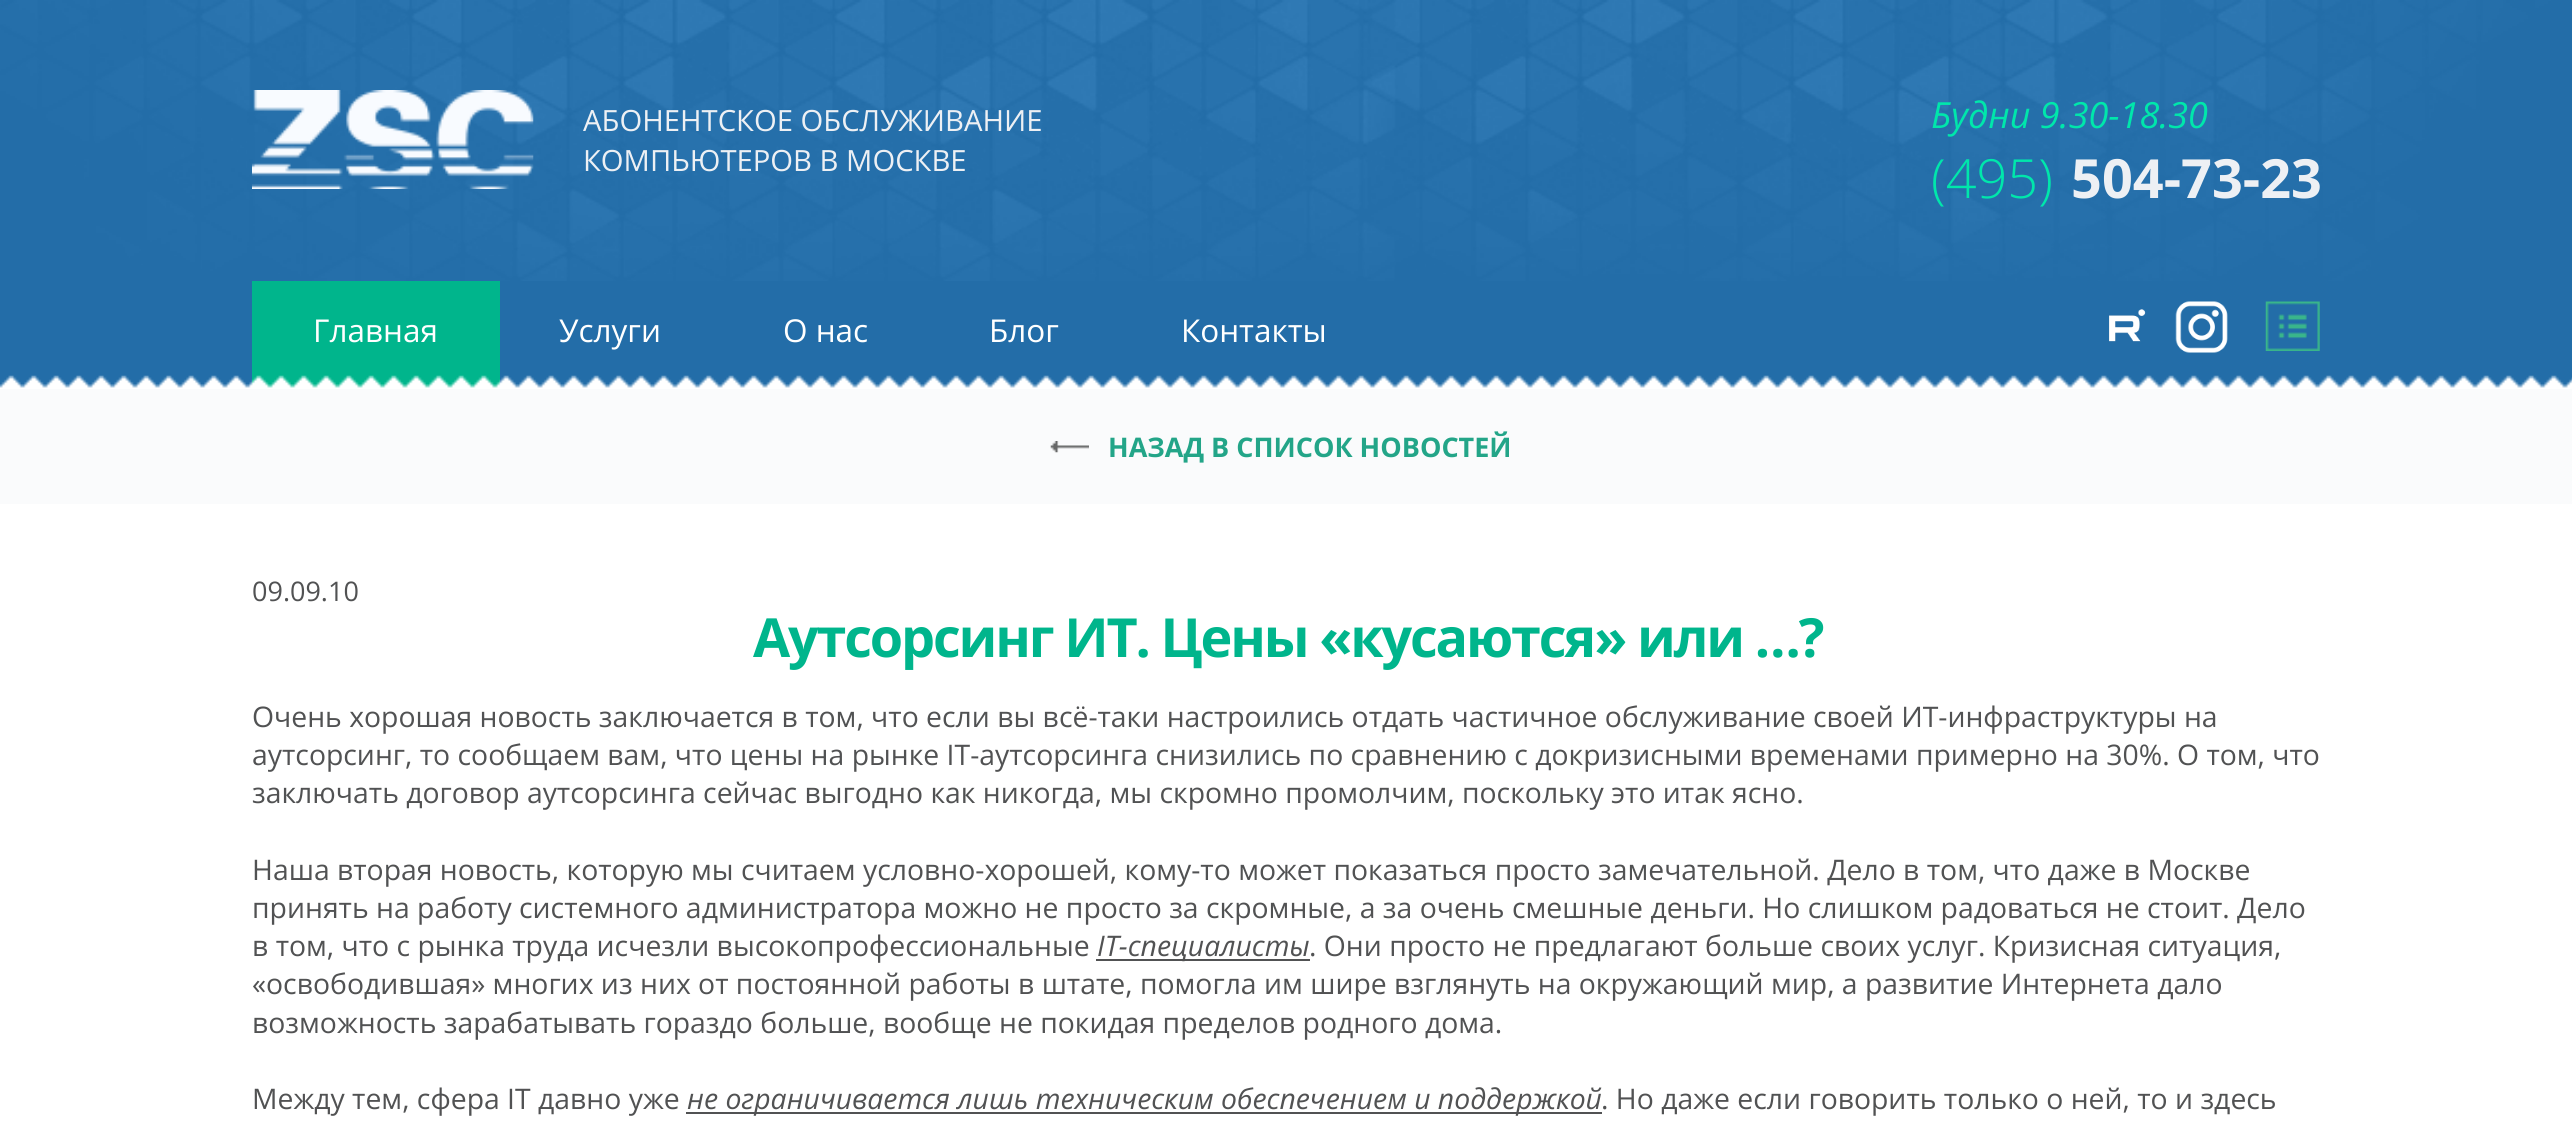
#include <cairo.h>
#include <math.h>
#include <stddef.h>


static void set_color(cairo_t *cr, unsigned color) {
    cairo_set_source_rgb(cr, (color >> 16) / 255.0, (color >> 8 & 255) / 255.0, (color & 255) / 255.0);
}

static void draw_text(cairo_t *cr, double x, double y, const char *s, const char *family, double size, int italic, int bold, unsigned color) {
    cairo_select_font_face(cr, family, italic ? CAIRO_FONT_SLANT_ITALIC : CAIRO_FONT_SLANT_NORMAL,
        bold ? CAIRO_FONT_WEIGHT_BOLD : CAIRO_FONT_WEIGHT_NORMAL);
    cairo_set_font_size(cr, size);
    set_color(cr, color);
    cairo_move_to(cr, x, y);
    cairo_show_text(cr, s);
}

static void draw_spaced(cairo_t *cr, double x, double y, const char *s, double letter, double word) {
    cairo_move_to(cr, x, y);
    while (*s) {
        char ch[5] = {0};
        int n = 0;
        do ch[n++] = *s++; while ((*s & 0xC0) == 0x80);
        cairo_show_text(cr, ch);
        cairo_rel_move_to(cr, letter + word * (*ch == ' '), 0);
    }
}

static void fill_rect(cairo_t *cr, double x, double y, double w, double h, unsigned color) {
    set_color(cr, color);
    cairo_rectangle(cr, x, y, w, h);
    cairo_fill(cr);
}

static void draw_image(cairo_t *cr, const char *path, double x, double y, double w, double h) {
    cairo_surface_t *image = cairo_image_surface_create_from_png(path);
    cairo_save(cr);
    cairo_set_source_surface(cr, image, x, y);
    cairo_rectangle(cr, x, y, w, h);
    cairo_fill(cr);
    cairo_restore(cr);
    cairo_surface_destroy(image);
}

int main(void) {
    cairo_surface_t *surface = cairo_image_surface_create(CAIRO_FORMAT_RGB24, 2572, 1139);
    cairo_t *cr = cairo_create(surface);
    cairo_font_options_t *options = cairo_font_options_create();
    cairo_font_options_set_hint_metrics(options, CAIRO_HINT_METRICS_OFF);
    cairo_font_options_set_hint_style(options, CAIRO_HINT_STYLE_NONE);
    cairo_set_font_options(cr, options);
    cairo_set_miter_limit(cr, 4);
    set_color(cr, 0xFFFFFF);
    cairo_paint(cr);
    draw_image(cr, "assets/img1.png", 0, 0, 2572, 281);
    draw_image(cr, "assets/img2.png", 252, 90, 282, 99);
    draw_text(cr, 583, 131, "АБОНЕНТСКОЕ ОБСЛУЖИВАНИЕ", "Open Sans", 29.25, 0, 0, 0xEDF0F4);
    draw_text(cr, 583, 171, "КОМПЬЮТЕРОВ В МОСКВЕ", "Open Sans", 29.25, 0, 0, 0xEDF0F4);
    draw_text(cr, 1931, 128, "Будни 9.30-18.30", "Open Sans", 36, 1, 0, 0x00E7AB);
    draw_text(cr, 1931, 198, "(495)", "Open Sans Light", 54, 0, 0, 0x00E7AB);
    draw_text(cr, 2071, 198, "504-73-23", "Open Sans", 54, 0, 1, 0xEDF0F4);
    fill_rect(cr, 0, 281, 2572, 107, 0x236DA8);
    fill_rect(cr, 252, 281, 248, 107, 0x00B58C);
    draw_text(cr, 313, 342, "Главная", "Open Sans", 31.5, 0, 0, 0xFFFFFF);
    draw_text(cr, 559, 342, "Услуги", "Open Sans", 31.5, 0, 0, 0xFFFFFF);
    draw_text(cr, 783, 342, "О нас", "Open Sans", 31.5, 0, 0, 0xFFFFFF);
    draw_text(cr, 989, 342, "Блог", "Open Sans", 31.5, 0, 0, 0xFFFFFF);
    draw_text(cr, 1181, 342, "Контакты", "Open Sans", 31.5, 0, 0, 0xFFFFFF);
    draw_image(cr, "assets/img3.png", 2109, 309, 37, 33);
    draw_image(cr, "assets/img4.png", 2175, 301, 53, 52);
    draw_image(cr, "assets/img5.png", 2265, 301, 55, 50);
    draw_image(cr, "assets/img6.png", 0, 375, 2572, 14);
    fill_rect(cr, 0, 389, 2572, 115, 0xFAFBFC);
    draw_image(cr, "assets/img7.png", 1050, 441, 39, 12);
    draw_text(cr, 1108, 457, "НАЗАД В СПИСОК НОВОСТЕЙ", "Open Sans", 27, 0, 1, 0x23A588);
    draw_text(cr, 252, 601, "09.09.10", "Open Sans", 27, 0, 0, 0x515253);
    cairo_select_font_face(cr, "Open Sans", CAIRO_FONT_SLANT_NORMAL, CAIRO_FONT_WEIGHT_BOLD);
    cairo_set_font_size(cr, 53.9);
    set_color(cr, 0x00B58C);
    draw_spaced(cr, 753, 657, "Аутсорсинг ИТ. Цены «кусаются» или …?", -2.15, 0);
    draw_text(cr, 252, 727, "Очень хорошая новость заключается в том, что если вы всё-таки настроились отдать частичное обслуживание своей ИТ-инфраструктуры на", "Open Sans", 28.35, 0, 0, 0x515253);
    draw_text(cr, 252, 765, "аутсорсинг, то сообщаем вам, что цены на рынке IT-аутсорсинга снизились по сравнению с докризисными временами примерно на 30%. О том, что", "Open Sans", 28.35, 0, 0, 0x515253);
    draw_text(cr, 252, 803, "заключать договор аутсорсинга сейчас выгодно как никогда, мы скромно промолчим, поскольку это итак ясно.", "Open Sans", 28.35, 0, 0, 0x515253);
    draw_text(cr, 252, 880, "Наша вторая новость, которую мы считаем условно-хорошей, кому-то может показаться просто замечательной. Дело в том, что даже в Москве", "Open Sans", 28.35, 0, 0, 0x515253);
    draw_text(cr, 252, 918, "принять на работу системного администратора можно не просто за скромные, а за очень смешные деньги. Но слишком радоваться не стоит. Дело", "Open Sans", 28.35, 0, 0, 0x515253);
    draw_text(cr, 252, 956, "в том, что с рынка труда исчезли высокопрофессиональные", "Open Sans", 28.35, 0, 0, 0x515253);
    fill_rect(cr, 1096, 959, 214, 2, 0x515253);
    draw_text(cr, 1097, 956, "IT-специалисты", "Open Sans", 28.35, 1, 0, 0x515253);
    draw_text(cr, 1309, 956, ". Они просто не предлагают больше своих услуг. Кризисная ситуация,", "Open Sans", 28.35, 0, 0, 0x515253);
    draw_text(cr, 252, 994, "«освободившая» многих из них от постоянной работы в штате, помогла им шире взглянуть на окружающий мир, а развитие Интернета дало", "Open Sans", 28.35, 0, 0, 0x515253);
    draw_text(cr, 252, 1033, "возможность зарабатывать гораздо больше, вообще не покидая пределов родного дома.", "Open Sans", 28.35, 0, 0, 0x515253);
    draw_text(cr, 252, 1109, "Между тем, сфера IT давно уже", "Open Sans", 28.35, 0, 0, 0x515253);
    fill_rect(cr, 686, 1112, 916, 2, 0x515253);
    draw_text(cr, 687, 1109, "не ограничивается лишь техническим обеспечением и поддержкой", "Open Sans", 28.35, 1, 0, 0x515253);
    draw_text(cr, 1601, 1109, ". Но даже если говорить только о ней, то и здесь", "Open Sans", 28.35, 0, 0, 0x515253);
    cairo_surface_write_to_png(surface, "output.png");
    cairo_font_options_destroy(options);
    cairo_destroy(cr);
    cairo_surface_destroy(surface);
    return 0;
}
